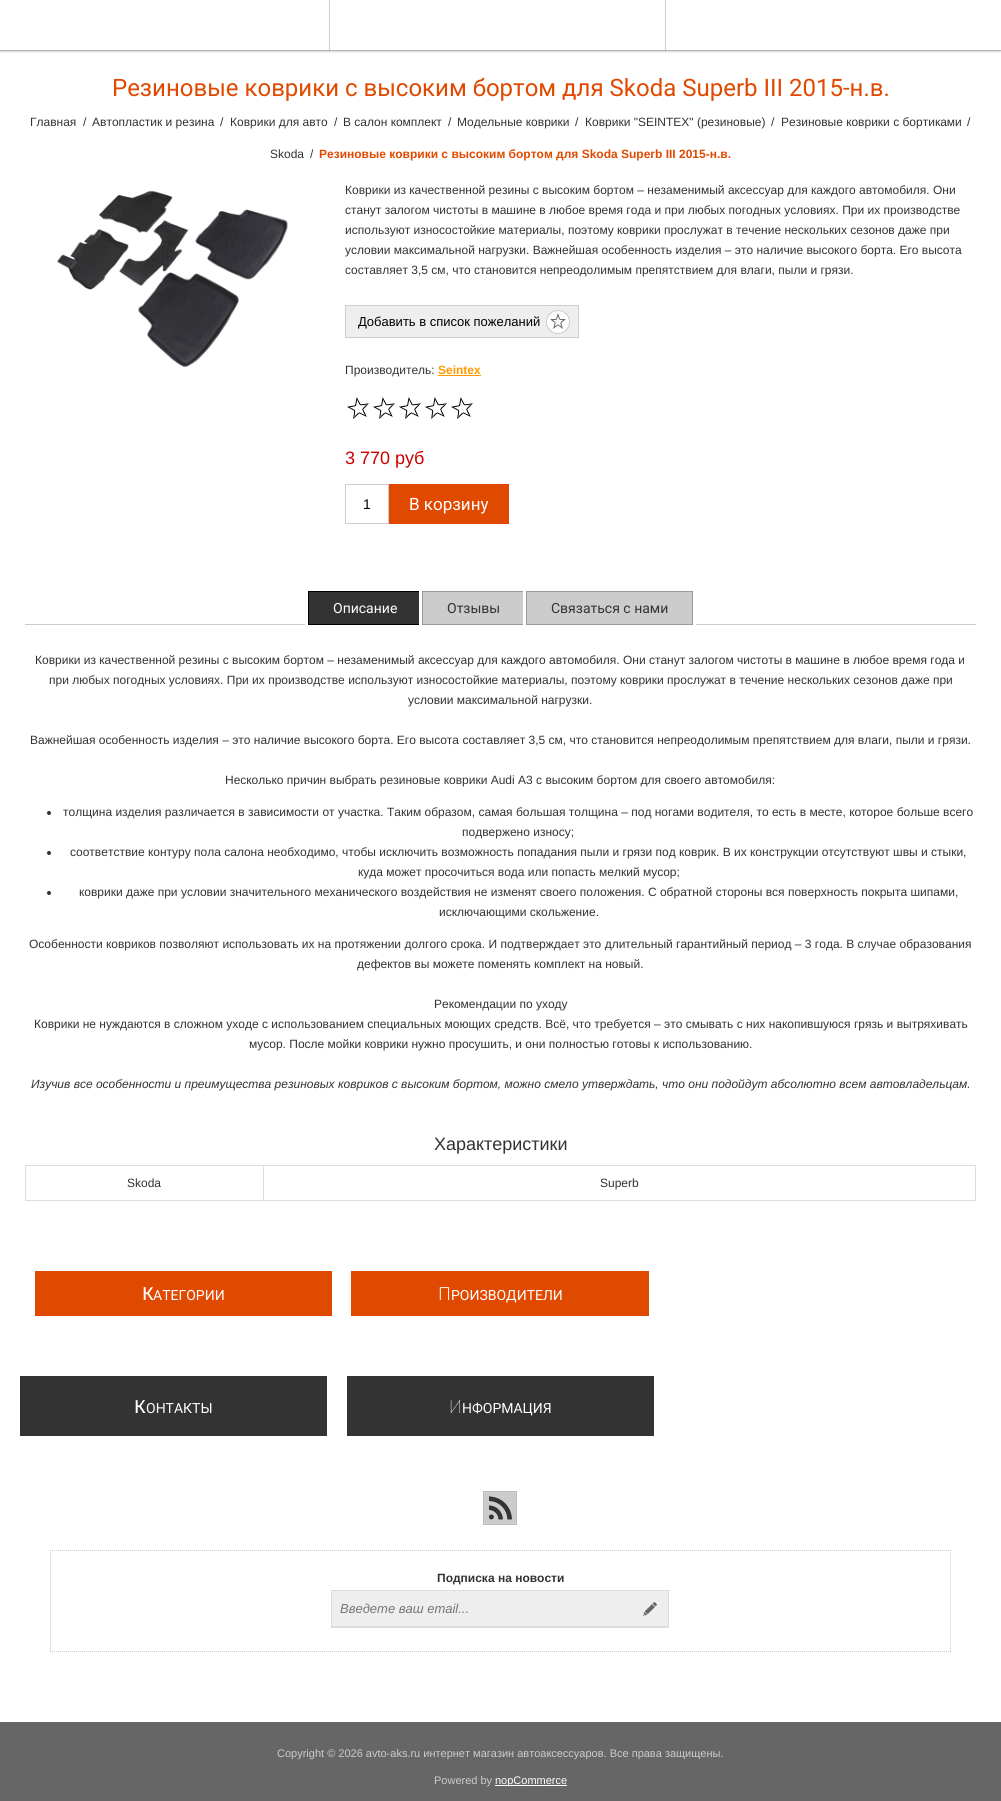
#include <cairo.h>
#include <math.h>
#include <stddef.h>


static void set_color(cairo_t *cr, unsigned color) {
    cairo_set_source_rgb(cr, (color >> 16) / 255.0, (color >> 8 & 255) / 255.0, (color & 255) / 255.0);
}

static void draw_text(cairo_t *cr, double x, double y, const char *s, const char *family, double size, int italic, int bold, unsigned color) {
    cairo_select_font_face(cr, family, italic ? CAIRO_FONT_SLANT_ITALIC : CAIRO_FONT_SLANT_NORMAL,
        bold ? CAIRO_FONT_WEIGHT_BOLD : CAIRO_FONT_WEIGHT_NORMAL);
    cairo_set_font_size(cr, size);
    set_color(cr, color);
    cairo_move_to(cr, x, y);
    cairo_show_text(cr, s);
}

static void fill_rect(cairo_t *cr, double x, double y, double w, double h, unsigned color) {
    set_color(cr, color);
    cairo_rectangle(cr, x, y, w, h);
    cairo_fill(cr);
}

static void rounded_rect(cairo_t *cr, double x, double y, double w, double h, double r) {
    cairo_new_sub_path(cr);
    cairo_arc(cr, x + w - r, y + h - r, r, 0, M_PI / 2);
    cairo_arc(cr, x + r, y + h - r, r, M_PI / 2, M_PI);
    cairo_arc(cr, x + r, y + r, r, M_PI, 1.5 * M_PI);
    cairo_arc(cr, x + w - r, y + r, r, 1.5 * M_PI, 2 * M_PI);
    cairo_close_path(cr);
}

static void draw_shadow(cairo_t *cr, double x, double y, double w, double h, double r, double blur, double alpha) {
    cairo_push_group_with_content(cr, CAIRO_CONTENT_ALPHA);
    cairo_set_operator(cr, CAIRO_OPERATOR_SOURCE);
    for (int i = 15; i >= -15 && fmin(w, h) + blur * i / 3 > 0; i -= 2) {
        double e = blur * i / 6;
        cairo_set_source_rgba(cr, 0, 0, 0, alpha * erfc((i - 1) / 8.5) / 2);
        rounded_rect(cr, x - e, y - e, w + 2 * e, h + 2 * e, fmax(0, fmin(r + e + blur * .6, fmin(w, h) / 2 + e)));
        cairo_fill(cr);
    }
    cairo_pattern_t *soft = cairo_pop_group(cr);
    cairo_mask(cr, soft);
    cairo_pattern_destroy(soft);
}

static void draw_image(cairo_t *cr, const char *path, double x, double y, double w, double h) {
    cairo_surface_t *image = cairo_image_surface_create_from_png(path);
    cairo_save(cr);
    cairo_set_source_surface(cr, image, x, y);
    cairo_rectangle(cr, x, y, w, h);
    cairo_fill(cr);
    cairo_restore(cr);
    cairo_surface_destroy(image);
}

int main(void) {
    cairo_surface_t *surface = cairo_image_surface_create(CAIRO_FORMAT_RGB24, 1001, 1801);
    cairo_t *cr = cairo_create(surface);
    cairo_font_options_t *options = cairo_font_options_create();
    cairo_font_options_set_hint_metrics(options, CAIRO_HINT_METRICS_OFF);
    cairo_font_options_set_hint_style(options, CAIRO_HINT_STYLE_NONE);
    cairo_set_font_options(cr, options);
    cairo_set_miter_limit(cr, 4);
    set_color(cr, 0xFFFFFF);
    cairo_paint(cr);
    set_color(cr, 0x000000);
    draw_shadow(cr, 0, 0, 1001, 50, 0, 1.5, 0.75);
    fill_rect(cr, 0, 0, 1001, 50, 0xFFFFFF);
    fill_rect(cr, 329, 0, 1, 50, 0xCCCCCC);
    fill_rect(cr, 665, 0, 1, 50, 0xCCCCCC);
    draw_text(cr, 112, 96, "Резиновые коврики с высоким бортом для Skoda Superb III 2015-н.в.", "Roboto", 24, 0, 0, 0xE04900);
    draw_text(cr, 30, 126, "Главная", "Liberation Sans", 12, 0, 0, 0x333333);
    draw_text(cr, 83, 126, "/", "Liberation Sans", 12, 0, 0, 0x333333);
    draw_text(cr, 92, 126, "Автопластик и резина", "Liberation Sans", 12, 0, 0, 0x333333);
    draw_text(cr, 220, 126, "/", "Liberation Sans", 12, 0, 0, 0x333333);
    draw_text(cr, 230, 126, "Коврики для авто", "Liberation Sans", 12, 0, 0, 0x333333);
    draw_text(cr, 334, 126, "/", "Liberation Sans", 12, 0, 0, 0x333333);
    draw_text(cr, 343, 126, "В салон комплект", "Liberation Sans", 12, 0, 0, 0x333333);
    draw_text(cr, 448, 126, "/", "Liberation Sans", 12, 0, 0, 0x333333);
    draw_text(cr, 457, 126, "Модельные коврики", "Liberation Sans", 12, 0, 0, 0x333333);
    draw_text(cr, 575, 126, "/", "Liberation Sans", 12, 0, 0, 0x333333);
    draw_text(cr, 585, 126, "Коврики \"SEINTEX\" (резиновые)", "Liberation Sans", 12, 0, 0, 0x333333);
    draw_text(cr, 771, 126, "/", "Liberation Sans", 12, 0, 0, 0x333333);
    draw_text(cr, 781, 126, "Резиновые коврики с бортиками", "Liberation Sans", 12, 0, 0, 0x333333);
    draw_text(cr, 967, 126, "/", "Liberation Sans", 12, 0, 0, 0x333333);
    draw_text(cr, 270, 158, "Skoda", "Liberation Sans", 12, 0, 0, 0x333333);
    draw_text(cr, 310, 158, "/", "Liberation Sans", 12, 0, 0, 0x333333);
    draw_text(cr, 319, 158, "Резиновые коврики с высоким бортом для Skoda Superb III 2015-н.в.", "Liberation Sans", 12, 0, 1, 0xE04900);
    draw_image(cr, "assets/img1.png", 57, 190, 231, 177);
    draw_text(cr, 345, 194, "Коврики из качественной резины с высоким бортом – незаменимый аксессуар для каждого автомобиля. Они", "Liberation Sans", 12, 0, 0, 0x333333);
    draw_text(cr, 345, 214, "станут залогом чистоты в машине в любое время года и при любых погодных условиях. При их производстве", "Liberation Sans", 12, 0, 0, 0x333333);
    draw_text(cr, 345, 234, "используют износостойкие материалы, поэтому коврики прослужат в течение нескольких сезонов даже при", "Liberation Sans", 12, 0, 0, 0x333333);
    draw_text(cr, 345, 254, "условии максимальной нагрузки. Важнейшая особенность изделия – это наличие высокого борта. Его высота", "Liberation Sans", 12, 0, 0, 0x333333);
    draw_text(cr, 345, 274, "составляет 3,5 см, что становится непреодолимым препятствием для влаги, пыли и грязи.", "Liberation Sans", 12, 0, 0, 0x333333);
    fill_rect(cr, 346, 306, 232, 31, 0xEEEEEE);
    draw_image(cr, "assets/img2.png", 546, 310, 24, 24);
    cairo_rectangle(cr, 345.5, 305.5, 233, 32);
    set_color(cr, 0xCCCCCC);
    cairo_set_line_width(cr, 1);
    cairo_stroke(cr);
    draw_text(cr, 358, 326, "Добавить в список пожеланий", "Liberation Sans", 13, 0, 0, 0x000000);
    draw_text(cr, 345, 374, "Производитель:", "Liberation Sans", 12, 0, 0, 0x333333);
    draw_text(cr, 438, 374, "Seintex", "Liberation Sans", 12, 0, 1, 0xFF9900);
    fill_rect(cr, 438, 375, 43, 1, 0xFF9900);
    draw_image(cr, "assets/img3.png", 347, 397, 126, 22);
    draw_text(cr, 345, 464, "3 770 руб", "Liberation Sans", 18, 0, 0, 0xCC0000);
    cairo_rectangle(cr, 345.5, 484.5, 43, 39);
    set_color(cr, 0xCCCCCC);
    cairo_stroke(cr);
    draw_text(cr, 363, 509, "1", "Liberation Sans", 14, 0, 0, 0x000000);
    fill_rect(cr, 389, 484, 120, 40, 0xE04900);
    draw_text(cr, 409, 510, "В корзину", "Roboto", 17, 0, 0, 0xFFFFFF);
    fill_rect(cr, 25, 624, 951, 1, 0xCCCCCC);
    cairo_rectangle(cr, 306.5, 589.5, 117, 37);
    set_color(cr, 0xFFFFFF);
    cairo_set_line_width(cr, 3);
    cairo_stroke(cr);
    fill_rect(cr, 309, 592, 110, 32, 0x333333);
    cairo_rectangle(cr, 308.5, 591.5, 113, 33);
    set_color(cr, 0x000000);
    cairo_set_line_width(cr, 1);
    cairo_stroke(cr);
    draw_text(cr, 333, 613, "Описание", "Roboto", 14, 0, 0, 0xFFFFFF);
    cairo_rectangle(cr, 420.5, 589.5, 107, 37);
    cairo_set_line_width(cr, 3);
    cairo_stroke(cr);
    fill_rect(cr, 423, 592, 100, 32, 0xCCCCCC);
    cairo_rectangle(cr, 422.5, 591.5, 103, 33);
    set_color(cr, 0x999999);
    cairo_set_line_width(cr, 1);
    cairo_stroke(cr);
    draw_text(cr, 447, 613, "Отзывы", "Roboto", 14, 0, 0, 0x333333);
    cairo_rectangle(cr, 524.5, 589.5, 170, 37);
    set_color(cr, 0xFFFFFF);
    cairo_set_line_width(cr, 3);
    cairo_stroke(cr);
    set_color(cr, 0xCCCCCC);
    cairo_rectangle(cr, 526.5, 591.5, 166, 33);
    cairo_fill_preserve(cr);
    set_color(cr, 0x999999);
    cairo_set_line_width(cr, 1);
    cairo_stroke(cr);
    draw_text(cr, 551, 613, "Связаться с нами", "Roboto", 14, 0, 0, 0x333333);
    draw_text(cr, 35, 664, "Коврики из качественной резины с высоким бортом – незаменимый аксессуар для каждого автомобиля. Они станут залогом чистоты в машине в любое время года и", "Liberation Sans", 12, 0, 0, 0x333333);
    draw_text(cr, 49, 684, "при любых погодных условиях. При их производстве используют износостойкие материалы, поэтому коврики прослужат в течение нескольких сезонов даже при", "Liberation Sans", 12, 0, 0, 0x333333);
    draw_text(cr, 408, 704, "условии максимальной нагрузки.", "Liberation Sans", 12, 0, 0, 0x333333);
    draw_text(cr, 30, 744, "Важнейшая особенность изделия – это наличие высокого борта. Его высота составляет 3,5 см, что становится непреодолимым препятствием для влаги, пыли и грязи.", "Liberation Sans", 12, 0, 0, 0x333333);
    draw_text(cr, 225, 784, "Несколько причин выбрать резиновые коврики Audi A3 с высоким бортом для своего автомобиля:", "Liberation Sans", 12, 0, 0, 0x333333);
    cairo_new_path(cr);
    cairo_arc(cr, 49, 813, 2, 0, 2 * M_PI);
    cairo_fill(cr);
    draw_text(cr, 63, 816, "толщина изделия различается в зависимости от участка. Таким образом, самая большая толщина – под ногами водителя, то есть в месте, которое больше всего", "Liberation Sans", 12, 0, 0, 0x333333);
    draw_text(cr, 462, 836, "подвержено износу;", "Liberation Sans", 12, 0, 0, 0x333333);
    cairo_new_path(cr);
    cairo_arc(cr, 49, 853, 2, 0, 2 * M_PI);
    cairo_fill(cr);
    draw_text(cr, 70, 856, "соответствие контуру пола салона необходимо, чтобы исключить возможность попадания пыли и грязи под коврик. В их конструкции отсутствуют швы и стыки,", "Liberation Sans", 12, 0, 0, 0x333333);
    draw_text(cr, 358, 876, "куда может просочиться вода или попасть мелкий мусор;", "Liberation Sans", 12, 0, 0, 0x333333);
    cairo_new_path(cr);
    cairo_arc(cr, 49, 893, 2, 0, 2 * M_PI);
    cairo_fill(cr);
    draw_text(cr, 79, 896, "коврики даже при условии значительного механического воздействия не изменят своего положения. С обратной стороны вся поверхность покрыта шипами,", "Liberation Sans", 12, 0, 0, 0x333333);
    draw_text(cr, 439, 916, "исключающими скольжение.", "Liberation Sans", 12, 0, 0, 0x333333);
    draw_text(cr, 29, 948, "Особенности ковриков позволяют использовать их на протяжении долгого срока. И подтверждает это длительный гарантийный период – 3 года. В случае образования", "Liberation Sans", 12, 0, 0, 0x333333);
    draw_text(cr, 357, 968, "дефектов вы можете поменять комплект на новый.", "Liberation Sans", 12, 0, 0, 0x333333);
    draw_text(cr, 434, 1008, "Рекомендации по уходу", "Liberation Sans", 12, 0, 0, 0x333333);
    draw_text(cr, 34, 1028, "Коврики не нуждаются в сложном уходе с использованием специальных моющих средств. Всё, что требуется – это смывать с них накопившуюся грязь и вытряхивать", "Liberation Sans", 12, 0, 0, 0x333333);
    draw_text(cr, 249, 1048, "мусор. После мойки коврики нужно просушить, и они полностью готовы к использованию.", "Liberation Sans", 12, 0, 0, 0x333333);
    draw_text(cr, 31, 1088, "Изучив все особенности и преимущества резиновых ковриков с высоким бортом, можно смело утверждать, что они подойдут абсолютно всем автовладельцам.", "Liberation Sans", 12, 1, 0, 0x333333);
    draw_text(cr, 434, 1150, "Характеристики", "Liberation Sans", 18, 0, 0, 0x333333);
    fill_rect(cr, 263, 1165, 713, 1, 0xDDDDDD);
    fill_rect(cr, 975, 1165, 1, 36, 0xDDDDDD);
    fill_rect(cr, 263, 1200, 713, 1, 0xDDDDDD);
    fill_rect(cr, 263, 1165, 1, 36, 0xDDDDDD);
    fill_rect(cr, 25, 1165, 239, 1, 0xDDDDDD);
    fill_rect(cr, 25, 1200, 239, 1, 0xDDDDDD);
    fill_rect(cr, 25, 1165, 1, 36, 0xDDDDDD);
    draw_text(cr, 127, 1187, "Skoda", "Liberation Sans", 12, 0, 0, 0x333333);
    draw_text(cr, 600, 1187, "Superb", "Liberation Sans", 12, 0, 0, 0x333333);
    fill_rect(cr, 35, 1271, 297, 45, 0xE04900);
    draw_text(cr, 142, 1300, "К", "Noto Sans Medium", 18, 0, 0, 0xFFFFFF);
    draw_text(cr, 153, 1300, "АТЕГОРИИ", "Roboto", 14, 0, 0, 0xFFFFFF);
    fill_rect(cr, 351, 1271, 298, 45, 0xE04900);
    draw_text(cr, 438, 1300, "П", "Noto Sans Light", 18, 0, 0, 0xFFFFFF);
    draw_text(cr, 451, 1300, "РОИЗВОДИТЕЛИ", "Roboto", 14, 0, 0, 0xFFFFFF);
    fill_rect(cr, 20, 1376, 307, 60, 0x333333);
    draw_text(cr, 134, 1413, "К", "Noto Sans Medium", 18, 0, 0, 0xFFFFFF);
    draw_text(cr, 146, 1413, "ОНТАКТЫ", "Roboto", 14, 0, 0, 0xFFFFFF);
    fill_rect(cr, 347, 1376, 307, 60, 0x333333);
    draw_text(cr, 449, 1413, "И", "Noto Sans Thin", 18, 0, 0, 0xFFFFFF);
    draw_text(cr, 462, 1413, "НФОРМАЦИЯ", "Roboto", 14, 0, 0, 0xFFFFFF);
    cairo_rectangle(cr, 483.5, 1491.5, 33, 33);
    set_color(cr, 0xBBBBBB);
    cairo_stroke(cr);
    draw_image(cr, "assets/img4.png", 484, 1492, 32, 32);
    cairo_new_path(cr);
    cairo_move_to(cr, 50, 1550.5);
    cairo_line_to(cr, 951, 1550.5);
    set_color(cr, 0xCCCCCC);
    cairo_set_dash(cr, (double[]){1, 1}, 2, 0);
    cairo_stroke(cr);
    cairo_new_path(cr);
    cairo_move_to(cr, 950.5, 1550);
    cairo_line_to(cr, 950.5, 1652);
    cairo_stroke(cr);
    cairo_new_path(cr);
    cairo_move_to(cr, 50, 1651.5);
    cairo_line_to(cr, 951, 1651.5);
    cairo_stroke(cr);
    cairo_new_path(cr);
    cairo_move_to(cr, 50.5, 1550);
    cairo_line_to(cr, 50.5, 1652);
    cairo_stroke(cr);
    draw_text(cr, 437, 1582, "Подписка на новости", "Liberation Sans", 12, 0, 1, 0x333333);
    fill_rect(cr, 331, 1590, 338, 38, 0xEEEEEE);
    cairo_new_path(cr);
    cairo_move_to(cr, 331, 1590.5);
    cairo_line_to(cr, 669, 1590.5);
    set_color(cr, 0xCCCCCC);
    cairo_stroke(cr);
    cairo_new_path(cr);
    cairo_move_to(cr, 668.5, 1590);
    cairo_line_to(cr, 668.5, 1628);
    cairo_stroke(cr);
    cairo_new_path(cr);
    cairo_move_to(cr, 331, 1627.5);
    cairo_line_to(cr, 669, 1627.5);
    cairo_stroke(cr);
    cairo_new_path(cr);
    cairo_move_to(cr, 331.5, 1590);
    cairo_line_to(cr, 331.5, 1628);
    cairo_stroke(cr);
    cairo_new_path(cr);
    cairo_move_to(cr, 332, 1626.5);
    cairo_line_to(cr, 632, 1626.5);
    cairo_stroke(cr);
    draw_text(cr, 340, 1613, "Введете ваш email...", "Liberation Sans", 13, 1, 0, 0x757575);
    draw_image(cr, "assets/img5.png", 643, 1602, 14, 14);
    cairo_new_path(cr);
    cairo_move_to(cr, 632, 1626.5);
    cairo_line_to(cr, 668, 1626.5);
    set_color(cr, 0xCCCCCC);
    cairo_stroke(cr);
    fill_rect(cr, 0, 1722, 1001, 79, 0x666666);
    draw_text(cr, 277, 1757, "Copyright © 2026 avto-aks.ru интернет магазин автоаксессуаров. Все права защищены.", "Liberation Sans", 11, 0, 0, 0xCCCCCC);
    draw_text(cr, 434, 1784, "Powered by", "Liberation Sans", 11, 0, 0, 0xCCCCCC);
    fill_rect(cr, 495, 1785, 72, 1, 0xFFFFFF);
    draw_text(cr, 495, 1784, "nopCommerce", "Liberation Sans", 11, 0, 0, 0xFFFFFF);
    cairo_surface_write_to_png(surface, "output.png");
    cairo_font_options_destroy(options);
    cairo_destroy(cr);
    cairo_surface_destroy(surface);
    return 0;
}
